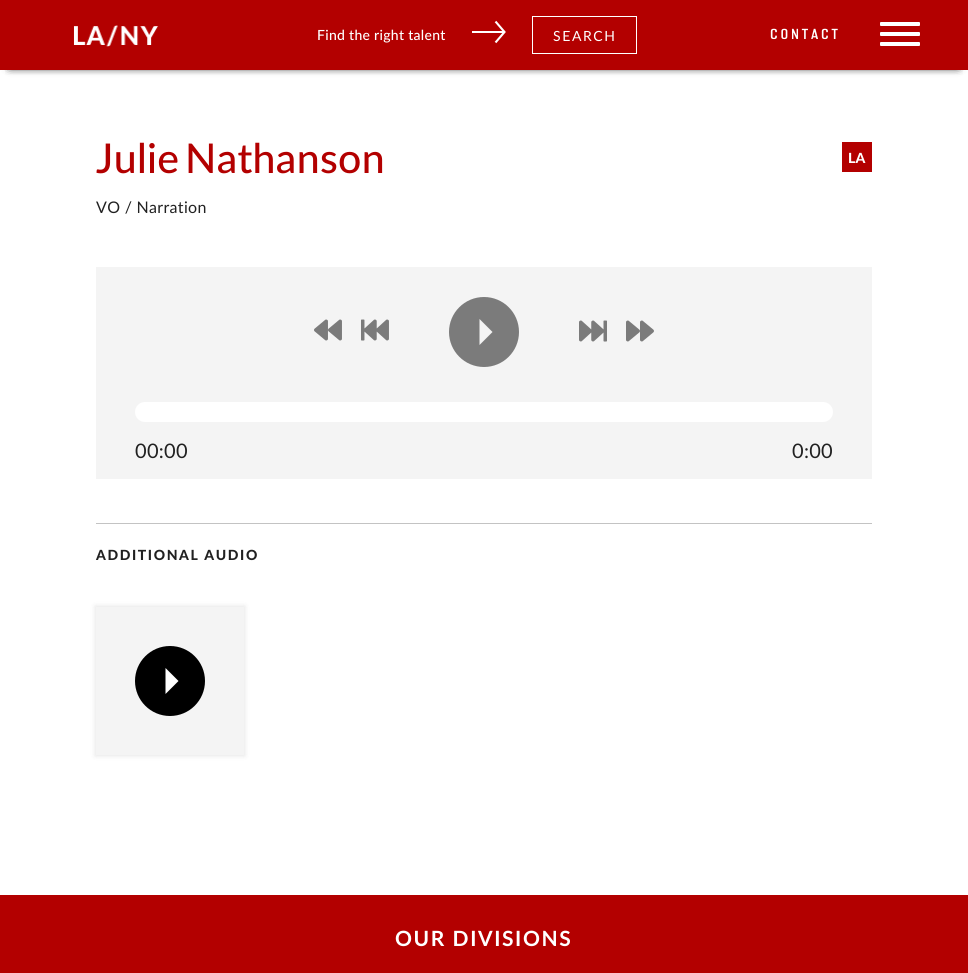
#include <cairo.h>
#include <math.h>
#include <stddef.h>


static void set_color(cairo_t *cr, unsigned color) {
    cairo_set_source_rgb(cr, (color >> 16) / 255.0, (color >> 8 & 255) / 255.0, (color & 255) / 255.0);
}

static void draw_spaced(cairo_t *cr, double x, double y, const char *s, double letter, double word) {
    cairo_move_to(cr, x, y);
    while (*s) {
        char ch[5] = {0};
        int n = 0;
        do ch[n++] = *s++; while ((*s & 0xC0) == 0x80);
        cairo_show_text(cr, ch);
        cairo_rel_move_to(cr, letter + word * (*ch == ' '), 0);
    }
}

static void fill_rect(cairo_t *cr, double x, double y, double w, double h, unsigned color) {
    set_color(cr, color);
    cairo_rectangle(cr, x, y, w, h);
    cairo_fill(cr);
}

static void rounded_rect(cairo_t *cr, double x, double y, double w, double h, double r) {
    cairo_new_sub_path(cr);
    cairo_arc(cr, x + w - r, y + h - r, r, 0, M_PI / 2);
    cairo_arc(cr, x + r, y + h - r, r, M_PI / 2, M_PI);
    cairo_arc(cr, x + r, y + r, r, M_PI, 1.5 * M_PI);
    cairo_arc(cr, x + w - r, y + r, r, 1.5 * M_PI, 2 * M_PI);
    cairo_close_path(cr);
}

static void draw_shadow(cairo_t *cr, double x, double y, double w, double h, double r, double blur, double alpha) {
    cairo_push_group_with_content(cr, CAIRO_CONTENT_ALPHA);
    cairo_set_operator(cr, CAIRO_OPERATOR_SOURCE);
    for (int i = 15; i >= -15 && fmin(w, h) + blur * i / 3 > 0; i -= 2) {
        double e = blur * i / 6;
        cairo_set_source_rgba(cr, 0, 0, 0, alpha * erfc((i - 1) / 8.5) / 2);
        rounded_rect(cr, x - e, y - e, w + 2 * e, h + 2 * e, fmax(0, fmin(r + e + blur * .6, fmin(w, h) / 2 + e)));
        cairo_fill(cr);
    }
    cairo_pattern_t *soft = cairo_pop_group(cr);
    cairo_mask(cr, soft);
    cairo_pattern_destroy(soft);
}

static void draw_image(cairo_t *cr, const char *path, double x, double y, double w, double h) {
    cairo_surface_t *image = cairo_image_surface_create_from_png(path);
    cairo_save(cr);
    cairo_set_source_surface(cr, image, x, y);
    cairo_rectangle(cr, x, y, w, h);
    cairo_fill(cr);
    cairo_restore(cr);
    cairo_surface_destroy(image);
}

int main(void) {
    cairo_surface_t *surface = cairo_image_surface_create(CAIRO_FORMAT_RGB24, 968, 973);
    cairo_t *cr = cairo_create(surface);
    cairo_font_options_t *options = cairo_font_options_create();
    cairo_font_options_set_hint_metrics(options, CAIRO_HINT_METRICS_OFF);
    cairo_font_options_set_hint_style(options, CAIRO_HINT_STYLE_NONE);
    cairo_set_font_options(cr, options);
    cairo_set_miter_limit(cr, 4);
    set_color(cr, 0xFFFFFF);
    cairo_paint(cr);
    set_color(cr, 0x000000);
    draw_shadow(cr, 10, 15, 948, 50, 0, 5, 1);
    fill_rect(cr, 0, 0, 968, 70, 0xB30000);
    cairo_save(cr);
    cairo_rectangle(cr, 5, 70, 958, 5);
    cairo_clip(cr);
    set_color(cr, 0x000000);
    draw_shadow(cr, 10, 15, 948, 50, 0, 5, 1);
    cairo_restore(cr);
    draw_image(cr, "assets/img1.png", 73, 25, 86, 22);
    cairo_select_font_face(cr, "Lato Medium", CAIRO_FONT_SLANT_NORMAL, CAIRO_FONT_WEIGHT_NORMAL);
    cairo_set_font_size(cr, 14);
    set_color(cr, 0xFFFFFF);
    draw_spaced(cr, 317, 40, "Find the right talent", 0.3, 0);
    fill_rect(cr, 472, 31, 32, 2, 0xFFFFFF);
    cairo_new_path(cr);
    cairo_move_to(cr, 495.5, 21.5);
    cairo_line_to(cr, 504.5, 32);
    cairo_line_to(cr, 495.5, 42.5);
    cairo_set_line_width(cr, 2.1);
    cairo_stroke(cr);
    cairo_rectangle(cr, 532.5, 16.5, 104, 37);
    cairo_set_line_width(cr, 1);
    cairo_stroke(cr);
    cairo_select_font_face(cr, "Lato", CAIRO_FONT_SLANT_NORMAL, CAIRO_FONT_WEIGHT_NORMAL);
    draw_spaced(cr, 553, 41, "SEARCH", 1.6, 0);
    cairo_select_font_face(cr, "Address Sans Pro", CAIRO_FONT_SLANT_NORMAL, CAIRO_FONT_WEIGHT_BOLD);
    draw_spaced(cr, 770, 39, "CONTACT", 3.25, 0);
    rounded_rect(cr, 880, 22, 40, 4, 1);
    cairo_fill(cr);
    rounded_rect(cr, 880, 32, 40, 4, 1);
    cairo_fill(cr);
    rounded_rect(cr, 880, 42, 40, 4, 1);
    cairo_fill(cr);
    cairo_select_font_face(cr, "Lato Medium", CAIRO_FONT_SLANT_NORMAL, CAIRO_FONT_WEIGHT_NORMAL);
    cairo_set_font_size(cr, 41);
    set_color(cr, 0xB30000);
    draw_spaced(cr, 96, 173, "Julie", 0.3, 0);
    draw_spaced(cr, 185, 173, "Nathanson", 0.3, 0);
    fill_rect(cr, 842, 142, 30, 30, 0xB30000);
    cairo_select_font_face(cr, "Lato Black", CAIRO_FONT_SLANT_NORMAL, CAIRO_FONT_WEIGHT_NORMAL);
    cairo_set_font_size(cr, 14);
    set_color(cr, 0xFFFFFF);
    draw_spaced(cr, 848, 163, "LA", 0.3, 0);
    cairo_select_font_face(cr, "Lato", CAIRO_FONT_SLANT_NORMAL, CAIRO_FONT_WEIGHT_NORMAL);
    cairo_set_font_size(cr, 16);
    set_color(cr, 0x212121);
    draw_spaced(cr, 96, 213, "VO / Narration", 0.3, 0);
    fill_rect(cr, 96, 267, 776, 212, 0xF4F4F4);
    draw_image(cr, "assets/img2.png", 314, 319, 28, 22);
    draw_image(cr, "assets/img3.png", 361, 319, 28, 22);
    set_color(cr, 0x7B7B7B);
    cairo_arc(cr, 484, 332, 35, 0, 2 * M_PI);
    cairo_fill(cr);
    set_color(cr, 0xF4F4F4);
    cairo_new_path(cr);
    cairo_move_to(cr, 479.5, 345);
    cairo_line_to(cr, 479.5, 319);
    cairo_line_to(cr, 492.5, 332);
    cairo_close_path(cr);
    cairo_fill(cr);
    draw_image(cr, "assets/img4.png", 579, 320, 28, 22);
    draw_image(cr, "assets/img5.png", 626, 320, 28, 22);
    set_color(cr, 0xFFFFFF);
    rounded_rect(cr, 135, 402, 698, 20, 10);
    cairo_fill(cr);
    cairo_set_font_size(cr, 20);
    set_color(cr, 0x212121);
    draw_spaced(cr, 135, 458, "00:00", 0.3, 0);
    draw_spaced(cr, 792, 458, "0:00", 0.3, 0);
    fill_rect(cr, 96, 523, 776, 1, 0xC3C3C3);
    cairo_select_font_face(cr, "Lato Black", CAIRO_FONT_SLANT_NORMAL, CAIRO_FONT_WEIGHT_NORMAL);
    cairo_set_font_size(cr, 14);
    set_color(cr, 0x212121);
    draw_spaced(cr, 96, 560, "ADDITIONAL AUDIO", 1.6, 0);
    set_color(cr, 0x000000);
    draw_shadow(cr, 95, 606, 150, 150, 0, 2.5, 0.1);
    fill_rect(cr, 96, 607, 148, 148, 0xF4F4F4);
    set_color(cr, 0x000000);
    cairo_arc(cr, 170, 681, 35, 0, 2 * M_PI);
    cairo_fill(cr);
    set_color(cr, 0xFFFFFF);
    cairo_new_path(cr);
    cairo_move_to(cr, 165.5, 694);
    cairo_line_to(cr, 165.5, 668);
    cairo_line_to(cr, 178.5, 681);
    cairo_close_path(cr);
    cairo_fill(cr);
    fill_rect(cr, 0, 895, 968, 78, 0xB30000);
    cairo_select_font_face(cr, "Lato", CAIRO_FONT_SLANT_NORMAL, CAIRO_FONT_WEIGHT_BOLD);
    cairo_set_font_size(cr, 21);
    set_color(cr, 0xFFFFFF);
    draw_spaced(cr, 395, 946, "OUR DIVISIONS", 1.6, 0);
    cairo_surface_write_to_png(surface, "output.png");
    cairo_font_options_destroy(options);
    cairo_destroy(cr);
    cairo_surface_destroy(surface);
    return 0;
}
